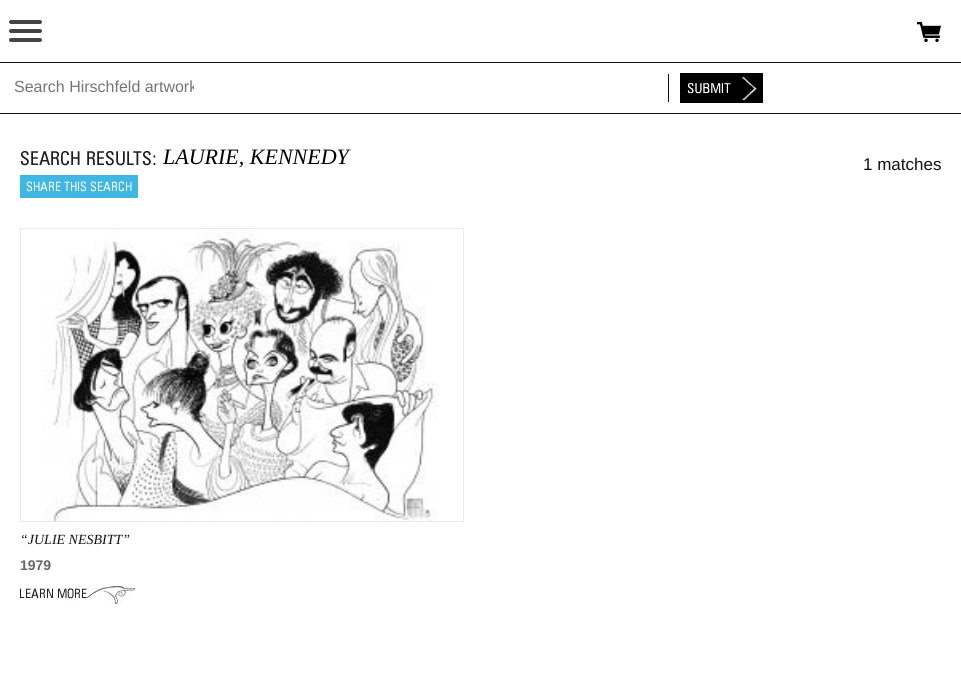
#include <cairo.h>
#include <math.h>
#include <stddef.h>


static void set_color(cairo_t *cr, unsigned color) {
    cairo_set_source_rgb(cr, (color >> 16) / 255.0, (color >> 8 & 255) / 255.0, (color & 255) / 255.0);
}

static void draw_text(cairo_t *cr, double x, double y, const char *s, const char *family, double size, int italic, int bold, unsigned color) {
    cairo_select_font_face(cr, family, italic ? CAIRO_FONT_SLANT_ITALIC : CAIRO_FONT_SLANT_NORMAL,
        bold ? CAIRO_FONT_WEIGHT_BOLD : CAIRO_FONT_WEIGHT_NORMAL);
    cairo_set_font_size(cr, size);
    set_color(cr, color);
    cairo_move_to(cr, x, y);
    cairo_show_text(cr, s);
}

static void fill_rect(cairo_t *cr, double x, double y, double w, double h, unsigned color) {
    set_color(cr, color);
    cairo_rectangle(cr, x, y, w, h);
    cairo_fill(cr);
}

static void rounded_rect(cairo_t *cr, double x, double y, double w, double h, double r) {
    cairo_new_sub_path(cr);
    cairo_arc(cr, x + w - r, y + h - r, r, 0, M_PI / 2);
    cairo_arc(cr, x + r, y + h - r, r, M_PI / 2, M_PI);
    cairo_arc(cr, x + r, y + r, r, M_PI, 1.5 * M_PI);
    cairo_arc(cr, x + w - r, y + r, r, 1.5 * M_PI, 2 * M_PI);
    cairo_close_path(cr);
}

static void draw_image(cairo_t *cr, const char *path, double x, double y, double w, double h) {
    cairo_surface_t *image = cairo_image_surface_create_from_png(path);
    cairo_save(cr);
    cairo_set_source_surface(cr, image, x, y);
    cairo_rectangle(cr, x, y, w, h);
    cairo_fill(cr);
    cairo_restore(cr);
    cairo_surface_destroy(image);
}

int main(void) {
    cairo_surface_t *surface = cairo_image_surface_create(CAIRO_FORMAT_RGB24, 961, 684);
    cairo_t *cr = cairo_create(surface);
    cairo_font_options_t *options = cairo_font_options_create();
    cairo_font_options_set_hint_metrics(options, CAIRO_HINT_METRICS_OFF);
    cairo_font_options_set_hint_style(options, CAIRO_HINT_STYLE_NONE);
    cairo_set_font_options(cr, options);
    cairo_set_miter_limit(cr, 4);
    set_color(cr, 0xFFFFFF);
    cairo_paint(cr);
    set_color(cr, 0x444444);
    rounded_rect(cr, 9, 20, 33, 4, 2);
    cairo_fill(cr);
    rounded_rect(cr, 9, 29, 33, 4, 2);
    cairo_fill(cr);
    rounded_rect(cr, 9, 38, 33, 4, 2);
    cairo_fill(cr);
    draw_image(cr, "assets/img1.png", 917, 21, 24, 21);
    fill_rect(cr, 0, 62, 961, 1, 0x111111);
    fill_rect(cr, 0, 113, 961, 1, 0x111111);
    fill_rect(cr, 668, 74, 1, 28, 0x111111);
    cairo_save(cr);
    cairo_rectangle(cr, 14, 78, 180, 18);
    cairo_clip(cr);
    draw_text(cr, 14, 92, "Search Hirschfeld artwork", "Liberation Sans", 16, 0, 0, 0x757575);
    cairo_restore(cr);
    draw_image(cr, "assets/img2.png", 680, 73, 83, 30);
    draw_image(cr, "assets/img3.png", 20, 151, 136, 15);
    draw_text(cr, 163, 164, "LAURIE, KENNEDY", "Liberation Serif", 22, 1, 0, 0x000000);
    draw_image(cr, "assets/img4.png", 20, 175, 118, 23);
    draw_text(cr, 863, 170, "1 matches", "Liberation Sans", 17, 0, 0, 0x111111);
    cairo_rectangle(cr, 20.5, 228.5, 443, 293);
    set_color(cr, 0xEAEAEA);
    cairo_set_line_width(cr, 1);
    cairo_stroke(cr);
    draw_image(cr, "assets/img5.png", 43, 229, 396, 292);
    draw_text(cr, 20, 544, "“JULIE NESBITT”", "Liberation Serif", 14, 1, 0, 0x111111);
    draw_text(cr, 20, 570, "1979", "Liberation Sans", 14, 0, 1, 0x666666);
    draw_image(cr, "assets/img6.png", 20, 584, 115, 20);
    cairo_surface_write_to_png(surface, "output.png");
    cairo_font_options_destroy(options);
    cairo_destroy(cr);
    cairo_surface_destroy(surface);
    return 0;
}
